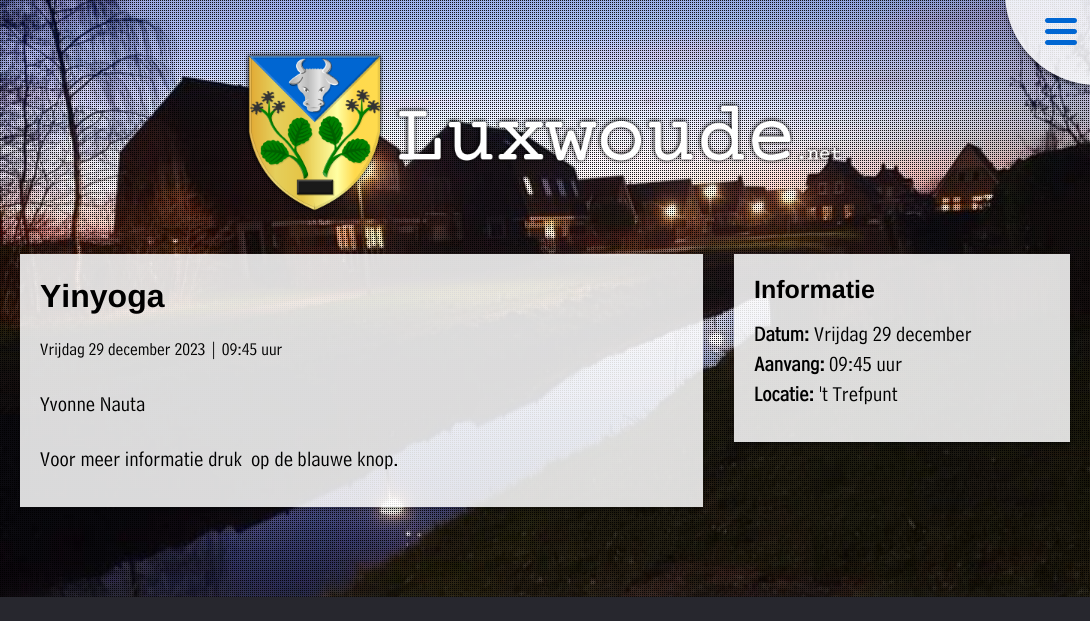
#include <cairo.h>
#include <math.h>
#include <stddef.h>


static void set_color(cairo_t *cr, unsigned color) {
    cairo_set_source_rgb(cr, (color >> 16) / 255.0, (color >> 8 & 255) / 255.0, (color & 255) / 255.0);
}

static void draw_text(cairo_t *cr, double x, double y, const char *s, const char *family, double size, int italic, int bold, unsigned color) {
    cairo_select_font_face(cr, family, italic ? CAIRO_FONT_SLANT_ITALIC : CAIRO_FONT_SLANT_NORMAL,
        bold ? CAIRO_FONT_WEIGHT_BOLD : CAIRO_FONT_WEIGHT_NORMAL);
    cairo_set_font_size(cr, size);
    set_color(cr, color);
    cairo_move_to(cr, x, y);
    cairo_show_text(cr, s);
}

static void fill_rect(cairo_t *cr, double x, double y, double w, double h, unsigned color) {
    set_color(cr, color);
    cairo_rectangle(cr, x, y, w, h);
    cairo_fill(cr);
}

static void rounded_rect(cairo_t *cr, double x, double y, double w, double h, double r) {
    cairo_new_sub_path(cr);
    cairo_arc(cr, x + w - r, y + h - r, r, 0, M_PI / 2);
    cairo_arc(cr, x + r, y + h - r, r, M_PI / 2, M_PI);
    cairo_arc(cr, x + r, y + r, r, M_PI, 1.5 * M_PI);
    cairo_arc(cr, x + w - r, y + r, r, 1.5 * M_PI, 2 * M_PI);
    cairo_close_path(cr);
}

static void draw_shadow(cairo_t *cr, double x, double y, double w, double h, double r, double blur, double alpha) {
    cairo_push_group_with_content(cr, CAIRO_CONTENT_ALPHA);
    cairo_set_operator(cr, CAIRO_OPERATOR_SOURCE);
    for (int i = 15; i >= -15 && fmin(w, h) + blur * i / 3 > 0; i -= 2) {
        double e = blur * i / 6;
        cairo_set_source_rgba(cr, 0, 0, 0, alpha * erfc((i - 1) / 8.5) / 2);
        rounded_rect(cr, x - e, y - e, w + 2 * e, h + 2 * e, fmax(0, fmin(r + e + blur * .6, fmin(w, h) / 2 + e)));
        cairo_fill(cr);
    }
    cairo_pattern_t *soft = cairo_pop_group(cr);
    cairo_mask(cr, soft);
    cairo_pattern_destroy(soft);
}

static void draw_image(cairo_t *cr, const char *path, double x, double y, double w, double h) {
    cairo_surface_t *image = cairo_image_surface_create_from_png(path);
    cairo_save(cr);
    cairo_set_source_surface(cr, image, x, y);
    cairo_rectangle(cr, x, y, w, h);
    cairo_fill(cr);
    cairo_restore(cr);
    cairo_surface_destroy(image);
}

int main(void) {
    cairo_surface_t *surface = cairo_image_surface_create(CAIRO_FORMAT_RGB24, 1090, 621);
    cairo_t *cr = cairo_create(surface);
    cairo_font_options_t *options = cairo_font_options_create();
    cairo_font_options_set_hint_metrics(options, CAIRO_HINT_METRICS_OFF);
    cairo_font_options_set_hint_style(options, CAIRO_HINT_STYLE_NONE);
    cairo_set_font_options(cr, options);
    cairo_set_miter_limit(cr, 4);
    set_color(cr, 0xFFFFFF);
    cairo_paint(cr);
    draw_image(cr, "assets/img1.png", 0, 0, 1090, 597);
    draw_image(cr, "assets/img2.png", 0, 0, 1089, 597);
    cairo_save(cr);
    cairo_set_fill_rule(cr, CAIRO_FILL_RULE_EVEN_ODD);
    cairo_new_path(cr);
    cairo_move_to(cr, 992, 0);
    cairo_line_to(cr, 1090, 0);
    cairo_line_to(cr, 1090, 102);
    cairo_line_to(cr, 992, 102);
    cairo_close_path(cr);
    cairo_move_to(cr, 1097.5, -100);
    cairo_curve_to(cr, 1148.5, -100, 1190, -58.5, 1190, -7.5);
    cairo_curve_to(cr, 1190, 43.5, 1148.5, 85, 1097.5, 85);
    cairo_curve_to(cr, 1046.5, 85, 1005, 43.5, 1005, -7.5);
    cairo_curve_to(cr, 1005, -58.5, 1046.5, -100, 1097.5, -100);
    cairo_close_path(cr);
    cairo_clip(cr);
    set_color(cr, 0x000000);
    draw_shadow(cr, 1005, -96, 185, 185, 92.5, 4, 0.19);
    cairo_restore(cr);
    cairo_save(cr);
    cairo_set_fill_rule(cr, CAIRO_FILL_RULE_EVEN_ODD);
    cairo_new_path(cr);
    cairo_move_to(cr, 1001, 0);
    cairo_line_to(cr, 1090, 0);
    cairo_line_to(cr, 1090, 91);
    cairo_line_to(cr, 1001, 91);
    cairo_close_path(cr);
    cairo_move_to(cr, 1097.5, -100);
    cairo_curve_to(cr, 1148.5, -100, 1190, -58.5, 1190, -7.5);
    cairo_curve_to(cr, 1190, 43.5, 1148.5, 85, 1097.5, 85);
    cairo_curve_to(cr, 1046.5, 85, 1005, 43.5, 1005, -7.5);
    cairo_curve_to(cr, 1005, -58.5, 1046.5, -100, 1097.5, -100);
    cairo_close_path(cr);
    cairo_clip(cr);
    set_color(cr, 0x000000);
    draw_shadow(cr, 1005, -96, 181, 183, 92.5, 1, 0.2);
    cairo_restore(cr);
    cairo_set_source_rgba(cr, 1, 1, 1, 0.85);
    rounded_rect(cr, 1005, -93, 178, 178, 92.5);
    cairo_fill(cr);
    set_color(cr, 0x0066D2);
    rounded_rect(cr, 1045, 18, 32, 5, 2.5);
    cairo_fill(cr);
    rounded_rect(cr, 1045, 29, 32, 5, 2.5);
    cairo_fill(cr);
    rounded_rect(cr, 1045, 40, 32, 5, 2.5);
    cairo_fill(cr);
    draw_image(cr, "assets/img3.png", 245, 52, 599, 160);
    cairo_save(cr);
    cairo_set_fill_rule(cr, CAIRO_FILL_RULE_EVEN_ODD);
    cairo_new_path(cr);
    cairo_move_to(cr, 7, 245);
    cairo_line_to(cr, 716, 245);
    cairo_line_to(cr, 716, 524);
    cairo_line_to(cr, 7, 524);
    cairo_close_path(cr);
    cairo_move_to(cr, 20, 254);
    cairo_line_to(cr, 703, 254);
    cairo_line_to(cr, 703, 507);
    cairo_line_to(cr, 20, 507);
    cairo_close_path(cr);
    cairo_clip(cr);
    set_color(cr, 0x000000);
    draw_shadow(cr, 20, 258, 683, 253, 0, 4, 0.19);
    cairo_restore(cr);
    cairo_save(cr);
    cairo_set_fill_rule(cr, CAIRO_FILL_RULE_EVEN_ODD);
    cairo_new_path(cr);
    cairo_move_to(cr, 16, 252);
    cairo_line_to(cr, 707, 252);
    cairo_line_to(cr, 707, 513);
    cairo_line_to(cr, 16, 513);
    cairo_close_path(cr);
    cairo_move_to(cr, 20, 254);
    cairo_line_to(cr, 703, 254);
    cairo_line_to(cr, 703, 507);
    cairo_line_to(cr, 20, 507);
    cairo_close_path(cr);
    cairo_clip(cr);
    set_color(cr, 0x000000);
    draw_shadow(cr, 20, 256, 683, 253, 0, 1, 0.2);
    cairo_restore(cr);
    cairo_set_source_rgba(cr, 1, 1, 1, 0.85);
    cairo_rectangle(cr, 20, 254, 683, 253);
    cairo_fill(cr);
    draw_text(cr, 40, 307, "Yinyoga", "Liberation Sans", 32, 0, 1, 0x000000);
    draw_text(cr, 40, 355, "Vrijdag 29 december 2023 | 09:45 uur", "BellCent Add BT", 17.4, 0, 0, 0x000000);
    draw_text(cr, 40, 411, "Yvonne Nauta", "BellCent Add BT", 21, 0, 0, 0x000000);
    draw_text(cr, 40, 466, "Voor meer informatie druk", "BellCent Add BT", 21, 0, 0, 0x000000);
    draw_text(cr, 251, 466, "op de blauwe knop.", "BellCent Add BT", 21, 0, 0, 0x000000);
    cairo_save(cr);
    cairo_set_fill_rule(cr, CAIRO_FILL_RULE_EVEN_ODD);
    cairo_new_path(cr);
    cairo_move_to(cr, 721, 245);
    cairo_line_to(cr, 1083, 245);
    cairo_line_to(cr, 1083, 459);
    cairo_line_to(cr, 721, 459);
    cairo_close_path(cr);
    cairo_move_to(cr, 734, 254);
    cairo_line_to(cr, 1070, 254);
    cairo_line_to(cr, 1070, 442);
    cairo_line_to(cr, 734, 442);
    cairo_close_path(cr);
    cairo_clip(cr);
    set_color(cr, 0x000000);
    draw_shadow(cr, 734, 258, 336, 188, 0, 4, 0.19);
    cairo_restore(cr);
    cairo_save(cr);
    cairo_set_fill_rule(cr, CAIRO_FILL_RULE_EVEN_ODD);
    cairo_new_path(cr);
    cairo_move_to(cr, 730, 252);
    cairo_line_to(cr, 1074, 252);
    cairo_line_to(cr, 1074, 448);
    cairo_line_to(cr, 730, 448);
    cairo_close_path(cr);
    cairo_move_to(cr, 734, 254);
    cairo_line_to(cr, 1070, 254);
    cairo_line_to(cr, 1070, 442);
    cairo_line_to(cr, 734, 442);
    cairo_close_path(cr);
    cairo_clip(cr);
    set_color(cr, 0x000000);
    draw_shadow(cr, 734, 256, 336, 188, 0, 1, 0.2);
    cairo_restore(cr);
    cairo_set_source_rgba(cr, 1, 1, 1, 0.85);
    cairo_rectangle(cr, 734, 254, 336, 188);
    cairo_fill(cr);
    draw_text(cr, 754, 298, "Informatie", "Liberation Sans", 25, 0, 1, 0x000000);
    draw_text(cr, 754, 341, "Datum:", "BellCent Add BT", 21, 0, 1, 0x000000);
    draw_text(cr, 814, 341, "Vrijdag 29 december", "BellCent Add BT", 21, 0, 0, 0x000000);
    draw_text(cr, 754, 371, "Aanvang:", "BellCent Add BT", 21, 0, 1, 0x000000);
    draw_text(cr, 829, 371, "09:45 uur", "BellCent Add BT", 21, 0, 0, 0x000000);
    draw_text(cr, 754, 401, "Locatie:", "BellCent Add BT", 21, 0, 1, 0x000000);
    draw_text(cr, 819, 401, "'t Trefpunt", "BellCent Add BT", 21, 0, 0, 0x000000);
    set_color(cr, 0x333333);
    draw_shadow(cr, 5, 592, 1080, 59, 0, 10, 0.19);
    fill_rect(cr, 0, 597, 1090, 24, 0x27272E);
    cairo_surface_write_to_png(surface, "output.png");
    cairo_font_options_destroy(options);
    cairo_destroy(cr);
    cairo_surface_destroy(surface);
    return 0;
}
